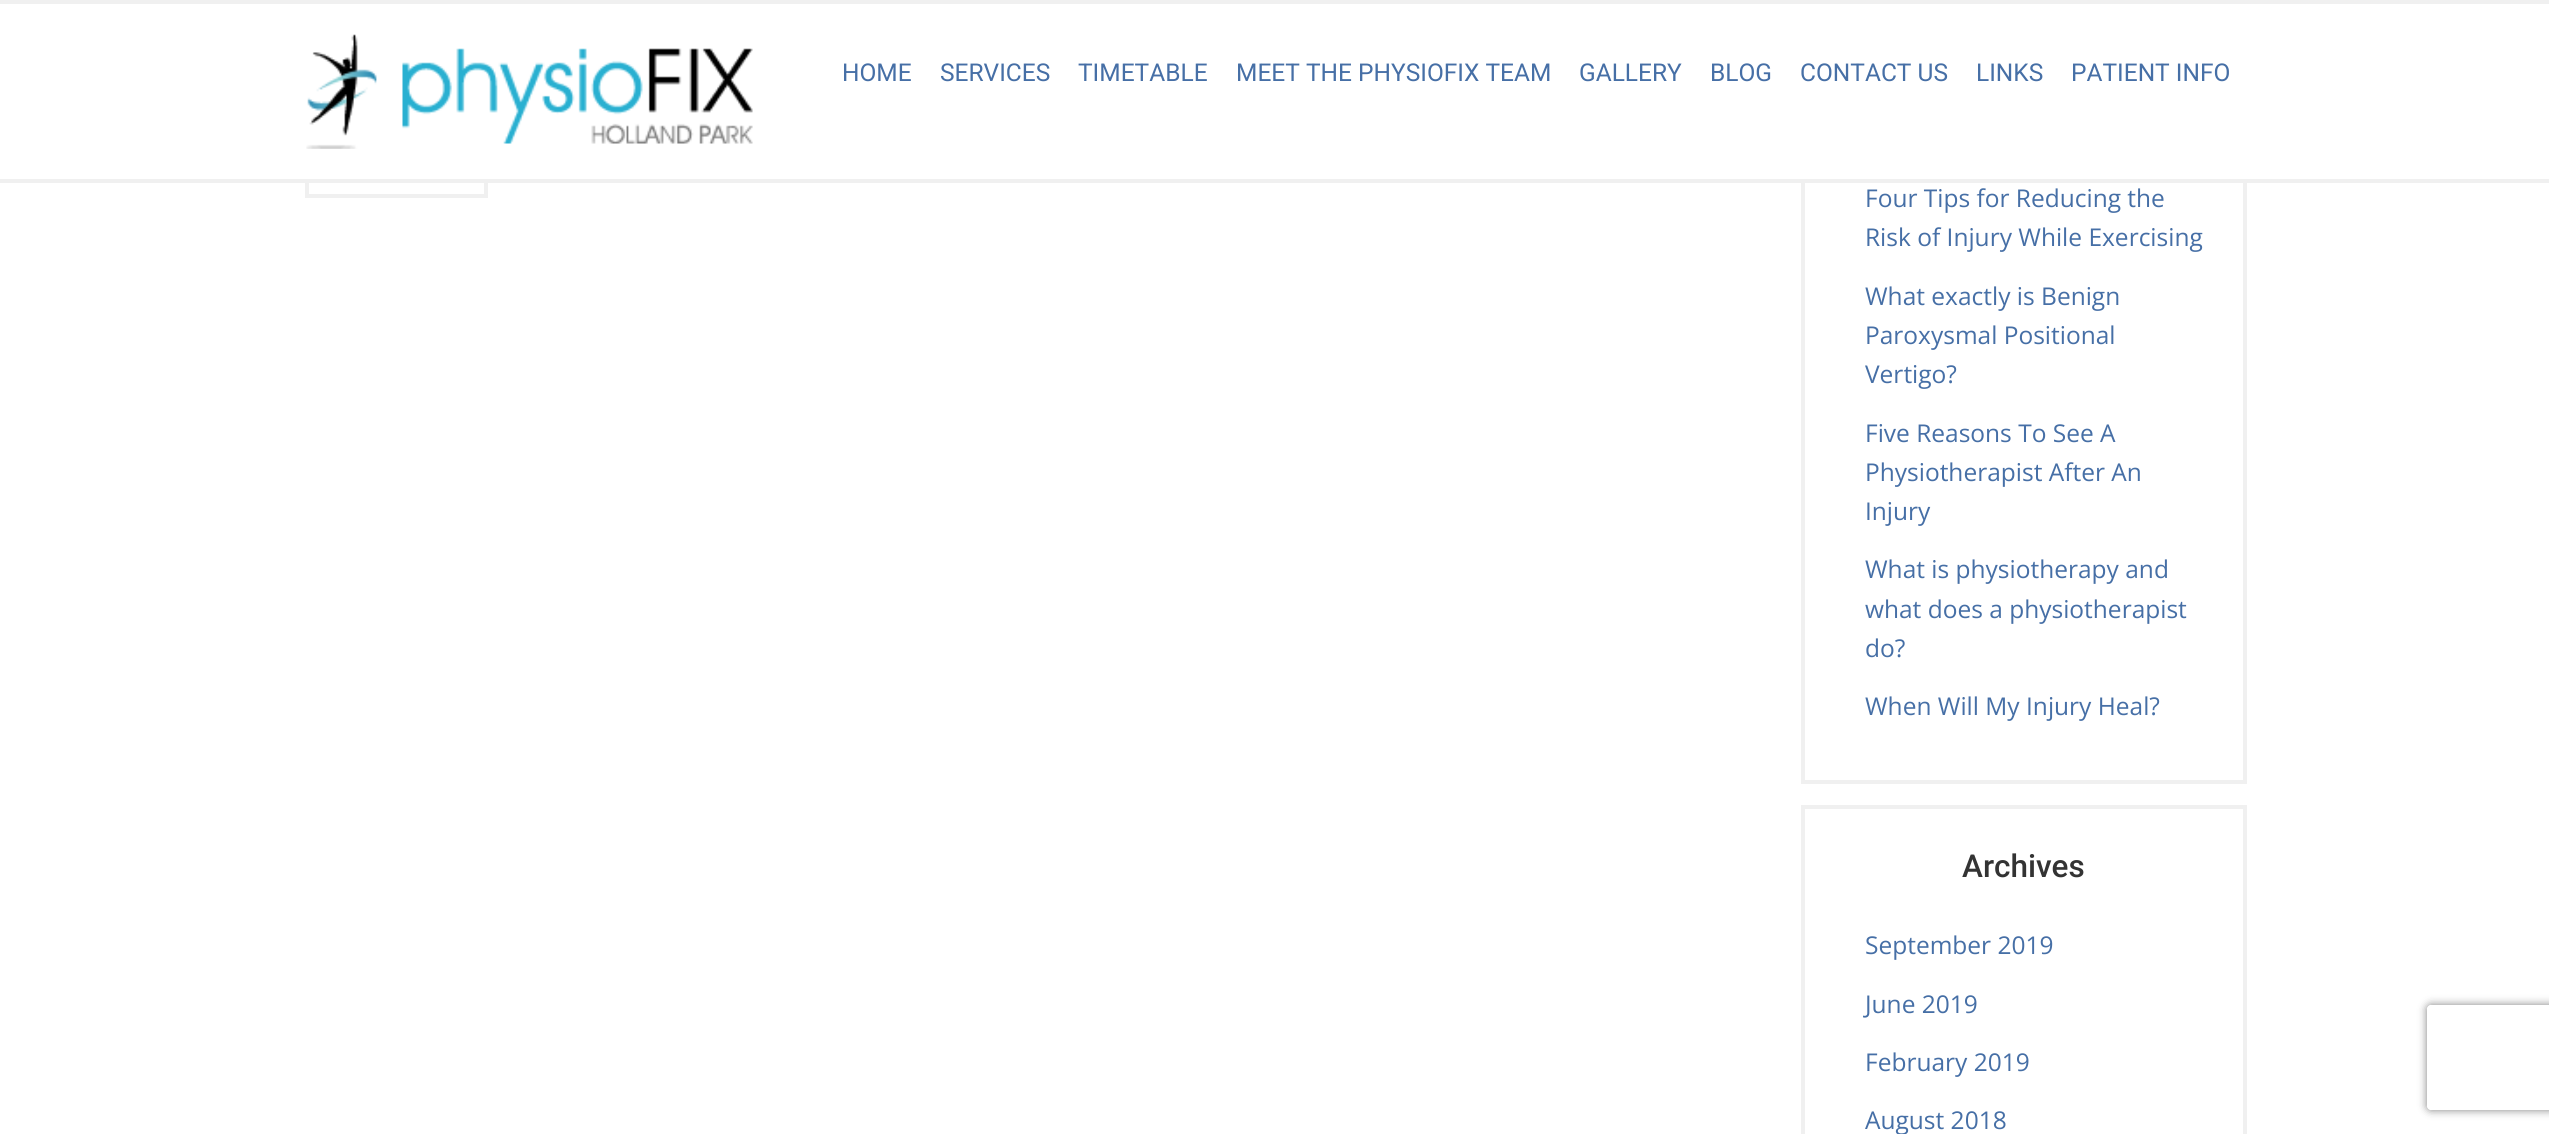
#include <cairo.h>
#include <math.h>
#include <stddef.h>


static void set_color(cairo_t *cr, unsigned color) {
    cairo_set_source_rgb(cr, (color >> 16) / 255.0, (color >> 8 & 255) / 255.0, (color & 255) / 255.0);
}

static void draw_text(cairo_t *cr, double x, double y, const char *s, const char *family, double size, int italic, int bold, unsigned color) {
    cairo_select_font_face(cr, family, italic ? CAIRO_FONT_SLANT_ITALIC : CAIRO_FONT_SLANT_NORMAL,
        bold ? CAIRO_FONT_WEIGHT_BOLD : CAIRO_FONT_WEIGHT_NORMAL);
    cairo_set_font_size(cr, size);
    set_color(cr, color);
    cairo_move_to(cr, x, y);
    cairo_show_text(cr, s);
}

static void fill_rect(cairo_t *cr, double x, double y, double w, double h, unsigned color) {
    set_color(cr, color);
    cairo_rectangle(cr, x, y, w, h);
    cairo_fill(cr);
}

static void rounded_rect(cairo_t *cr, double x, double y, double w, double h, double r) {
    cairo_new_sub_path(cr);
    cairo_arc(cr, x + w - r, y + h - r, r, 0, M_PI / 2);
    cairo_arc(cr, x + r, y + h - r, r, M_PI / 2, M_PI);
    cairo_arc(cr, x + r, y + r, r, M_PI, 1.5 * M_PI);
    cairo_arc(cr, x + w - r, y + r, r, 1.5 * M_PI, 2 * M_PI);
    cairo_close_path(cr);
}

static void draw_shadow(cairo_t *cr, double x, double y, double w, double h, double r, double blur, double alpha) {
    cairo_push_group_with_content(cr, CAIRO_CONTENT_ALPHA);
    cairo_set_operator(cr, CAIRO_OPERATOR_SOURCE);
    for (int i = 15; i >= -15 && fmin(w, h) + blur * i / 3 > 0; i -= 2) {
        double e = blur * i / 6;
        cairo_set_source_rgba(cr, 0, 0, 0, alpha * erfc((i - 1) / 8.5) / 2);
        rounded_rect(cr, x - e, y - e, w + 2 * e, h + 2 * e, fmax(0, fmin(r + e + blur * .6, fmin(w, h) / 2 + e)));
        cairo_fill(cr);
    }
    cairo_pattern_t *soft = cairo_pop_group(cr);
    cairo_mask(cr, soft);
    cairo_pattern_destroy(soft);
}

static void draw_image(cairo_t *cr, const char *path, double x, double y, double w, double h) {
    cairo_surface_t *image = cairo_image_surface_create_from_png(path);
    cairo_save(cr);
    cairo_set_source_surface(cr, image, x, y);
    cairo_rectangle(cr, x, y, w, h);
    cairo_fill(cr);
    cairo_restore(cr);
    cairo_surface_destroy(image);
}

int main(void) {
    cairo_surface_t *surface = cairo_image_surface_create(CAIRO_FORMAT_RGB24, 2549, 1134);
    cairo_t *cr = cairo_create(surface);
    cairo_font_options_t *options = cairo_font_options_create();
    cairo_font_options_set_hint_metrics(options, CAIRO_HINT_METRICS_OFF);
    cairo_font_options_set_hint_style(options, CAIRO_HINT_STYLE_NONE);
    cairo_set_font_options(cr, options);
    cairo_set_miter_limit(cr, 4);
    set_color(cr, 0xFFFFFF);
    cairo_paint(cr);
    cairo_rectangle(cr, 307, 146, 179, 50);
    set_color(cr, 0xF0F0F0);
    cairo_set_line_width(cr, 4);
    cairo_stroke(cr);
    cairo_rectangle(cr, 1803, 60, 442, 722);
    cairo_stroke(cr);
    fill_rect(cr, 305, 58, 1942, 121, 0xFFFFFF);
    fill_rect(cr, 0, 0, 2549, 4, 0xF0F0F0);
    fill_rect(cr, 0, 179, 2549, 4, 0xF0F0F0);
    draw_image(cr, "assets/img1.png", 306, 34, 447, 115);
    draw_text(cr, 842, 81, "HOME", "Roboto", 24.5, 0, 0, 0x466FA6);
    draw_text(cr, 940, 81, "SERVICES", "Roboto", 24.5, 0, 0, 0x466FA6);
    draw_text(cr, 1078, 81, "TIMETABLE", "Roboto", 24.5, 0, 0, 0x466FA6);
    draw_text(cr, 1236, 81, "MEET THE PHYSIOFIX TEAM", "Roboto", 24.5, 0, 0, 0x466FA6);
    draw_text(cr, 1579, 81, "GALLERY", "Roboto", 24.5, 0, 0, 0x466FA6);
    draw_text(cr, 1710, 81, "BLOG", "Roboto", 24.5, 0, 0, 0x466FA6);
    draw_text(cr, 1800, 81, "CONTACT US", "Roboto", 24.5, 0, 0, 0x466FA6);
    draw_text(cr, 1976, 81, "LINKS", "Roboto", 24.5, 0, 0, 0x466FA6);
    draw_text(cr, 2071, 81, "PATIENT INFO", "Roboto", 24.5, 0, 0, 0x466FA6);
    draw_text(cr, 1865, 207, "Four Tips for Reducing the", "Open Sans", 24.5, 0, 0, 0x466FA6);
    draw_text(cr, 1865, 246, "Risk of Injury While Exercising", "Open Sans", 24.5, 0, 0, 0x466FA6);
    draw_text(cr, 1865, 305, "What exactly is Benign", "Open Sans", 24.5, 0, 0, 0x466FA6);
    draw_text(cr, 1865, 344, "Paroxysmal Positional", "Open Sans", 24.5, 0, 0, 0x466FA6);
    draw_text(cr, 1865, 383, "Vertigo?", "Open Sans", 24.5, 0, 0, 0x466FA6);
    draw_text(cr, 1865, 442, "Five Reasons To See A", "Open Sans", 24.5, 0, 0, 0x466FA6);
    draw_text(cr, 1865, 481, "Physiotherapist After An", "Open Sans", 24.5, 0, 0, 0x466FA6);
    draw_text(cr, 1865, 520, "Injury", "Open Sans", 24.5, 0, 0, 0x466FA6);
    draw_text(cr, 1865, 578, "What is physiotherapy and", "Open Sans", 24.5, 0, 0, 0x466FA6);
    draw_text(cr, 1865, 618, "what does a physiotherapist", "Open Sans", 24.5, 0, 0, 0x466FA6);
    draw_text(cr, 1865, 657, "do?", "Open Sans", 24.5, 0, 0, 0x466FA6);
    draw_text(cr, 1865, 715, "When Will My Injury Heal?", "Open Sans", 24.5, 0, 0, 0x466FA6);
    cairo_rectangle(cr, 1803, 807, 442, 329);
    set_color(cr, 0xF0F0F0);
    cairo_stroke(cr);
    draw_text(cr, 1962, 877, "Archives", "Roboto Medium", 31.5, 0, 0, 0x333333);
    draw_text(cr, 1865, 954, "September 2019", "Open Sans", 24.5, 0, 0, 0x466FA6);
    draw_text(cr, 1865, 1013, "June 2019", "Open Sans", 24.5, 0, 0, 0x466FA6);
    draw_text(cr, 1865, 1071, "February 2019", "Open Sans", 24.5, 0, 0, 0x466FA6);
    draw_text(cr, 1865, 1129, "August 2018", "Open Sans", 24.5, 0, 0, 0x466FA6);
    cairo_save(cr);
    cairo_set_fill_rule(cr, CAIRO_FILL_RULE_EVEN_ODD);
    cairo_new_path(cr);
    cairo_move_to(cr, 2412, 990);
    cairo_line_to(cr, 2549, 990);
    cairo_line_to(cr, 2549, 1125);
    cairo_line_to(cr, 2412, 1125);
    cairo_close_path(cr);
    cairo_move_to(cr, 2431, 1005);
    cairo_line_to(cr, 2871, 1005);
    cairo_curve_to(cr, 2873, 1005, 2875, 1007, 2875, 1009);
    cairo_line_to(cr, 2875, 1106);
    cairo_curve_to(cr, 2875, 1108, 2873, 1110, 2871, 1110);
    cairo_line_to(cr, 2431, 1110);
    cairo_curve_to(cr, 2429, 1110, 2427, 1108, 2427, 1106);
    cairo_line_to(cr, 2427, 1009);
    cairo_curve_to(cr, 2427, 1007, 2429, 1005, 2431, 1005);
    cairo_close_path(cr);
    cairo_clip(cr);
    set_color(cr, 0x808080);
    draw_shadow(cr, 2427, 1005, 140, 105, 4, 4.5, 1);
    cairo_restore(cr);
    cairo_surface_write_to_png(surface, "output.png");
    cairo_font_options_destroy(options);
    cairo_destroy(cr);
    cairo_surface_destroy(surface);
    return 0;
}
